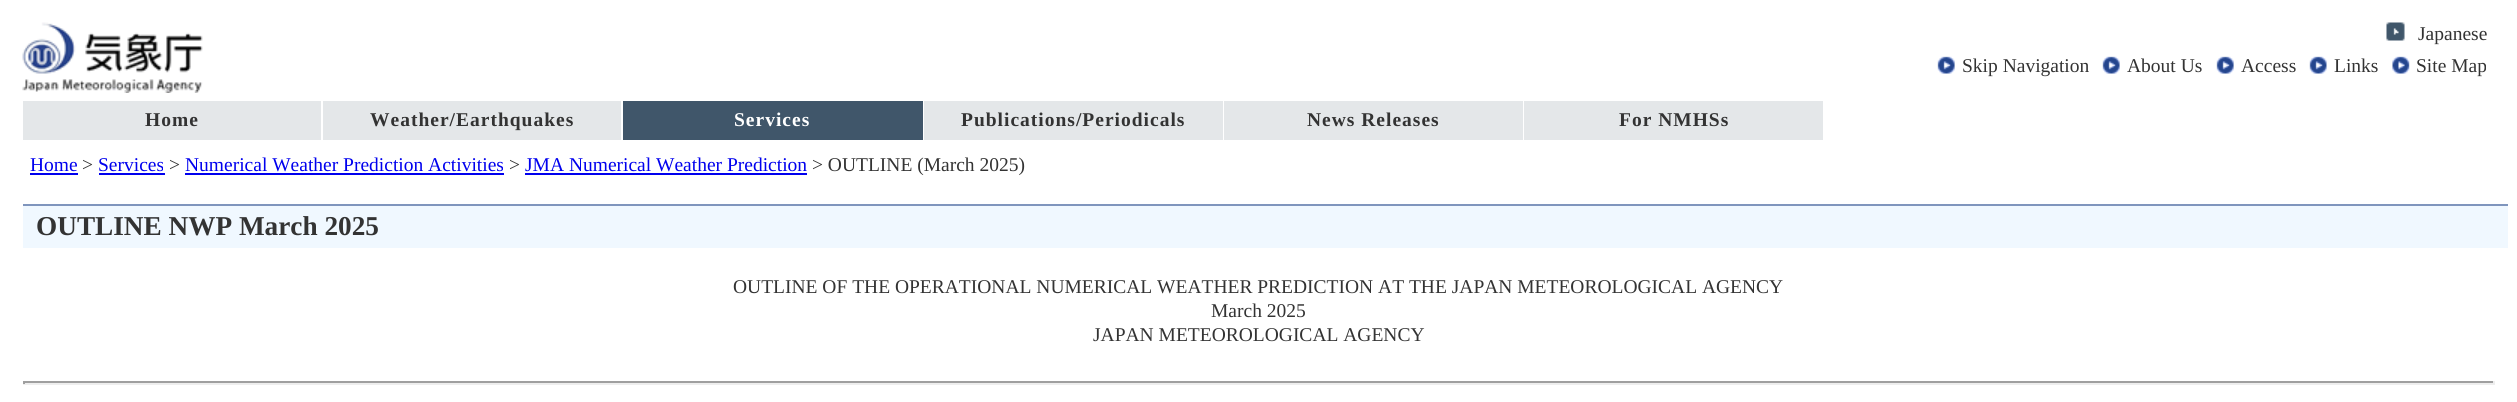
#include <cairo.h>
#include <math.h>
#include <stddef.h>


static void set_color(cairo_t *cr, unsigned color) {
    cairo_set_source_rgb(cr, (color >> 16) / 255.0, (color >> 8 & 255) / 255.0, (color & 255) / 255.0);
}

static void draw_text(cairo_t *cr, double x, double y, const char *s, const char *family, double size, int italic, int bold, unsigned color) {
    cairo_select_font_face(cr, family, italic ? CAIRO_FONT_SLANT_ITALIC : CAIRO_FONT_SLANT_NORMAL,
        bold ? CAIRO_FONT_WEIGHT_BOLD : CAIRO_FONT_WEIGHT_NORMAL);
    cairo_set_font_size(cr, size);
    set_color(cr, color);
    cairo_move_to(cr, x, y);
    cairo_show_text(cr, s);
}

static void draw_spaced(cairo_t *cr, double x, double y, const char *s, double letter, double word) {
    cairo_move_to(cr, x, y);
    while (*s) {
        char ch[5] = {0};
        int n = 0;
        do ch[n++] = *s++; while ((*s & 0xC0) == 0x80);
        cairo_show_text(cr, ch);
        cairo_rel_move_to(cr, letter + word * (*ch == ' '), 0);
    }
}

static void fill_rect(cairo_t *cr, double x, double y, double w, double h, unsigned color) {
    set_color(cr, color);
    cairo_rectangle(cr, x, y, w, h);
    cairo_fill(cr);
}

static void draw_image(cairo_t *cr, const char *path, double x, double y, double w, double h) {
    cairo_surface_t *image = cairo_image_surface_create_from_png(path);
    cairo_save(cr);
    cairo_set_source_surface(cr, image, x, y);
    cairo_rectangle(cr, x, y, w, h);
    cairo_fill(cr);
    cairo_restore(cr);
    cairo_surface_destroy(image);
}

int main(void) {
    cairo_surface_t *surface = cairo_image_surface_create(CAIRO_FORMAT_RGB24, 2517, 402);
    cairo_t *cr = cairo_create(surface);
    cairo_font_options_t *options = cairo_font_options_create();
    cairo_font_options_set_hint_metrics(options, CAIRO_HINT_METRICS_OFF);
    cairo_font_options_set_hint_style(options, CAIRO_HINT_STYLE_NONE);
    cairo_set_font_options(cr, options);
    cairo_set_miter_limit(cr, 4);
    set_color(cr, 0xFFFFFF);
    cairo_paint(cr);
    draw_image(cr, "assets/img1.png", 22, 22, 181, 71);
    draw_image(cr, "assets/img2.png", 2386, 22, 19, 19);
    draw_text(cr, 2418, 40, "Japanese", "Liberation Serif", 19.5, 0, 0, 0x333333);
    draw_image(cr, "assets/img3.png", 1937, 56, 18, 18);
    draw_text(cr, 1962, 72, "Skip Navigation", "Liberation Serif", 19.5, 0, 0, 0x333333);
    draw_image(cr, "assets/img3.png", 2102, 56, 18, 18);
    draw_text(cr, 2127, 72, "About Us", "Liberation Serif", 19.5, 0, 0, 0x333333);
    draw_image(cr, "assets/img3.png", 2216, 56, 18, 18);
    draw_text(cr, 2241, 72, "Access", "Liberation Serif", 19.5, 0, 0, 0x333333);
    draw_image(cr, "assets/img4.png", 2309, 56, 18, 18);
    draw_text(cr, 2334, 72, "Links", "Liberation Serif", 19.5, 0, 0, 0x333333);
    draw_image(cr, "assets/img5.png", 2392, 56, 18, 18);
    draw_text(cr, 2416, 72, "Site Map", "Liberation Serif", 19.5, 0, 0, 0x333333);
    fill_rect(cr, 23, 101, 298, 39, 0xE4E7E9);
    cairo_select_font_face(cr, "Liberation Serif", CAIRO_FONT_SLANT_NORMAL, CAIRO_FONT_WEIGHT_BOLD);
    set_color(cr, 0x333333);
    draw_spaced(cr, 145, 126, "Home", 1, 0);
    fill_rect(cr, 323, 101, 298, 39, 0xE4E7E9);
    set_color(cr, 0x333333);
    draw_spaced(cr, 370, 126, "Weather/Earthquakes", 1, 0);
    fill_rect(cr, 623, 101, 300, 39, 0x40566A);
    set_color(cr, 0xFFFFFF);
    draw_spaced(cr, 734, 126, "Services", 1, 0);
    fill_rect(cr, 924, 101, 299, 39, 0xE4E7E9);
    set_color(cr, 0x333333);
    draw_spaced(cr, 961, 126, "Publications/Periodicals", 1, 0);
    fill_rect(cr, 1224, 101, 299, 39, 0xE4E7E9);
    set_color(cr, 0x333333);
    draw_spaced(cr, 1307, 126, "News Releases", 1, 0);
    fill_rect(cr, 1524, 101, 299, 39, 0xE4E7E9);
    set_color(cr, 0x333333);
    draw_spaced(cr, 1619, 126, "For NMHSs", 1, 0);
    draw_text(cr, 30, 171, "Home", "Liberation Serif", 19.5, 0, 0, 0x0000EE);
    fill_rect(cr, 30, 173, 48, 2, 0x0000EE);
    draw_text(cr, 82, 171, ">", "Liberation Serif", 19.5, 0, 0, 0x333333);
    draw_text(cr, 98, 171, "Services", "Liberation Serif", 19.5, 0, 0, 0x0000EE);
    fill_rect(cr, 99, 173, 66, 2, 0x0000EE);
    draw_text(cr, 169, 171, ">", "Liberation Serif", 19.5, 0, 0, 0x333333);
    draw_text(cr, 185, 171, "Numerical Weather Prediction Activities", "Liberation Serif", 19.5, 0, 0, 0x0000EE);
    fill_rect(cr, 185, 173, 319, 2, 0x0000EE);
    draw_text(cr, 509, 171, ">", "Liberation Serif", 19.5, 0, 0, 0x333333);
    draw_text(cr, 525, 171, "JMA Numerical Weather Prediction", "Liberation Serif", 19.5, 0, 0, 0x0000EE);
    fill_rect(cr, 525, 173, 282, 2, 0x0000EE);
    draw_text(cr, 812, 171, "> OUTLINE (March 2025)", "Liberation Serif", 19.5, 0, 0, 0x333333);
    fill_rect(cr, 23, 206, 2485, 42, 0xF0F8FF);
    fill_rect(cr, 23, 204, 2485, 2, 0x7F95BD);
    draw_text(cr, 36, 235, "OUTLINE NWP March 2025", "Liberation Serif", 27.25, 0, 1, 0x333333);
    draw_text(cr, 733, 293, "OUTLINE OF THE OPERATIONAL NUMERICAL WEATHER PREDICTION AT THE JAPAN METEOROLOGICAL AGENCY", "Liberation Serif", 19.5, 0, 0, 0x333333);
    draw_text(cr, 1211, 317, "March 2025", "Liberation Serif", 19.5, 0, 0, 0x333333);
    draw_text(cr, 1093, 341, "JAPAN METEOROLOGICAL AGENCY", "Liberation Serif", 19.5, 0, 0, 0x333333);
    fill_rect(cr, 23, 381, 2472, 2, 0x9F9F9F);
    fill_rect(cr, 2493, 381, 2, 3, 0xEEEEEE);
    fill_rect(cr, 23, 383, 2472, 2, 0xEEEEEE);
    fill_rect(cr, 23, 381, 2, 3, 0x9F9F9F);
    cairo_surface_write_to_png(surface, "output.png");
    cairo_font_options_destroy(options);
    cairo_destroy(cr);
    cairo_surface_destroy(surface);
    return 0;
}
